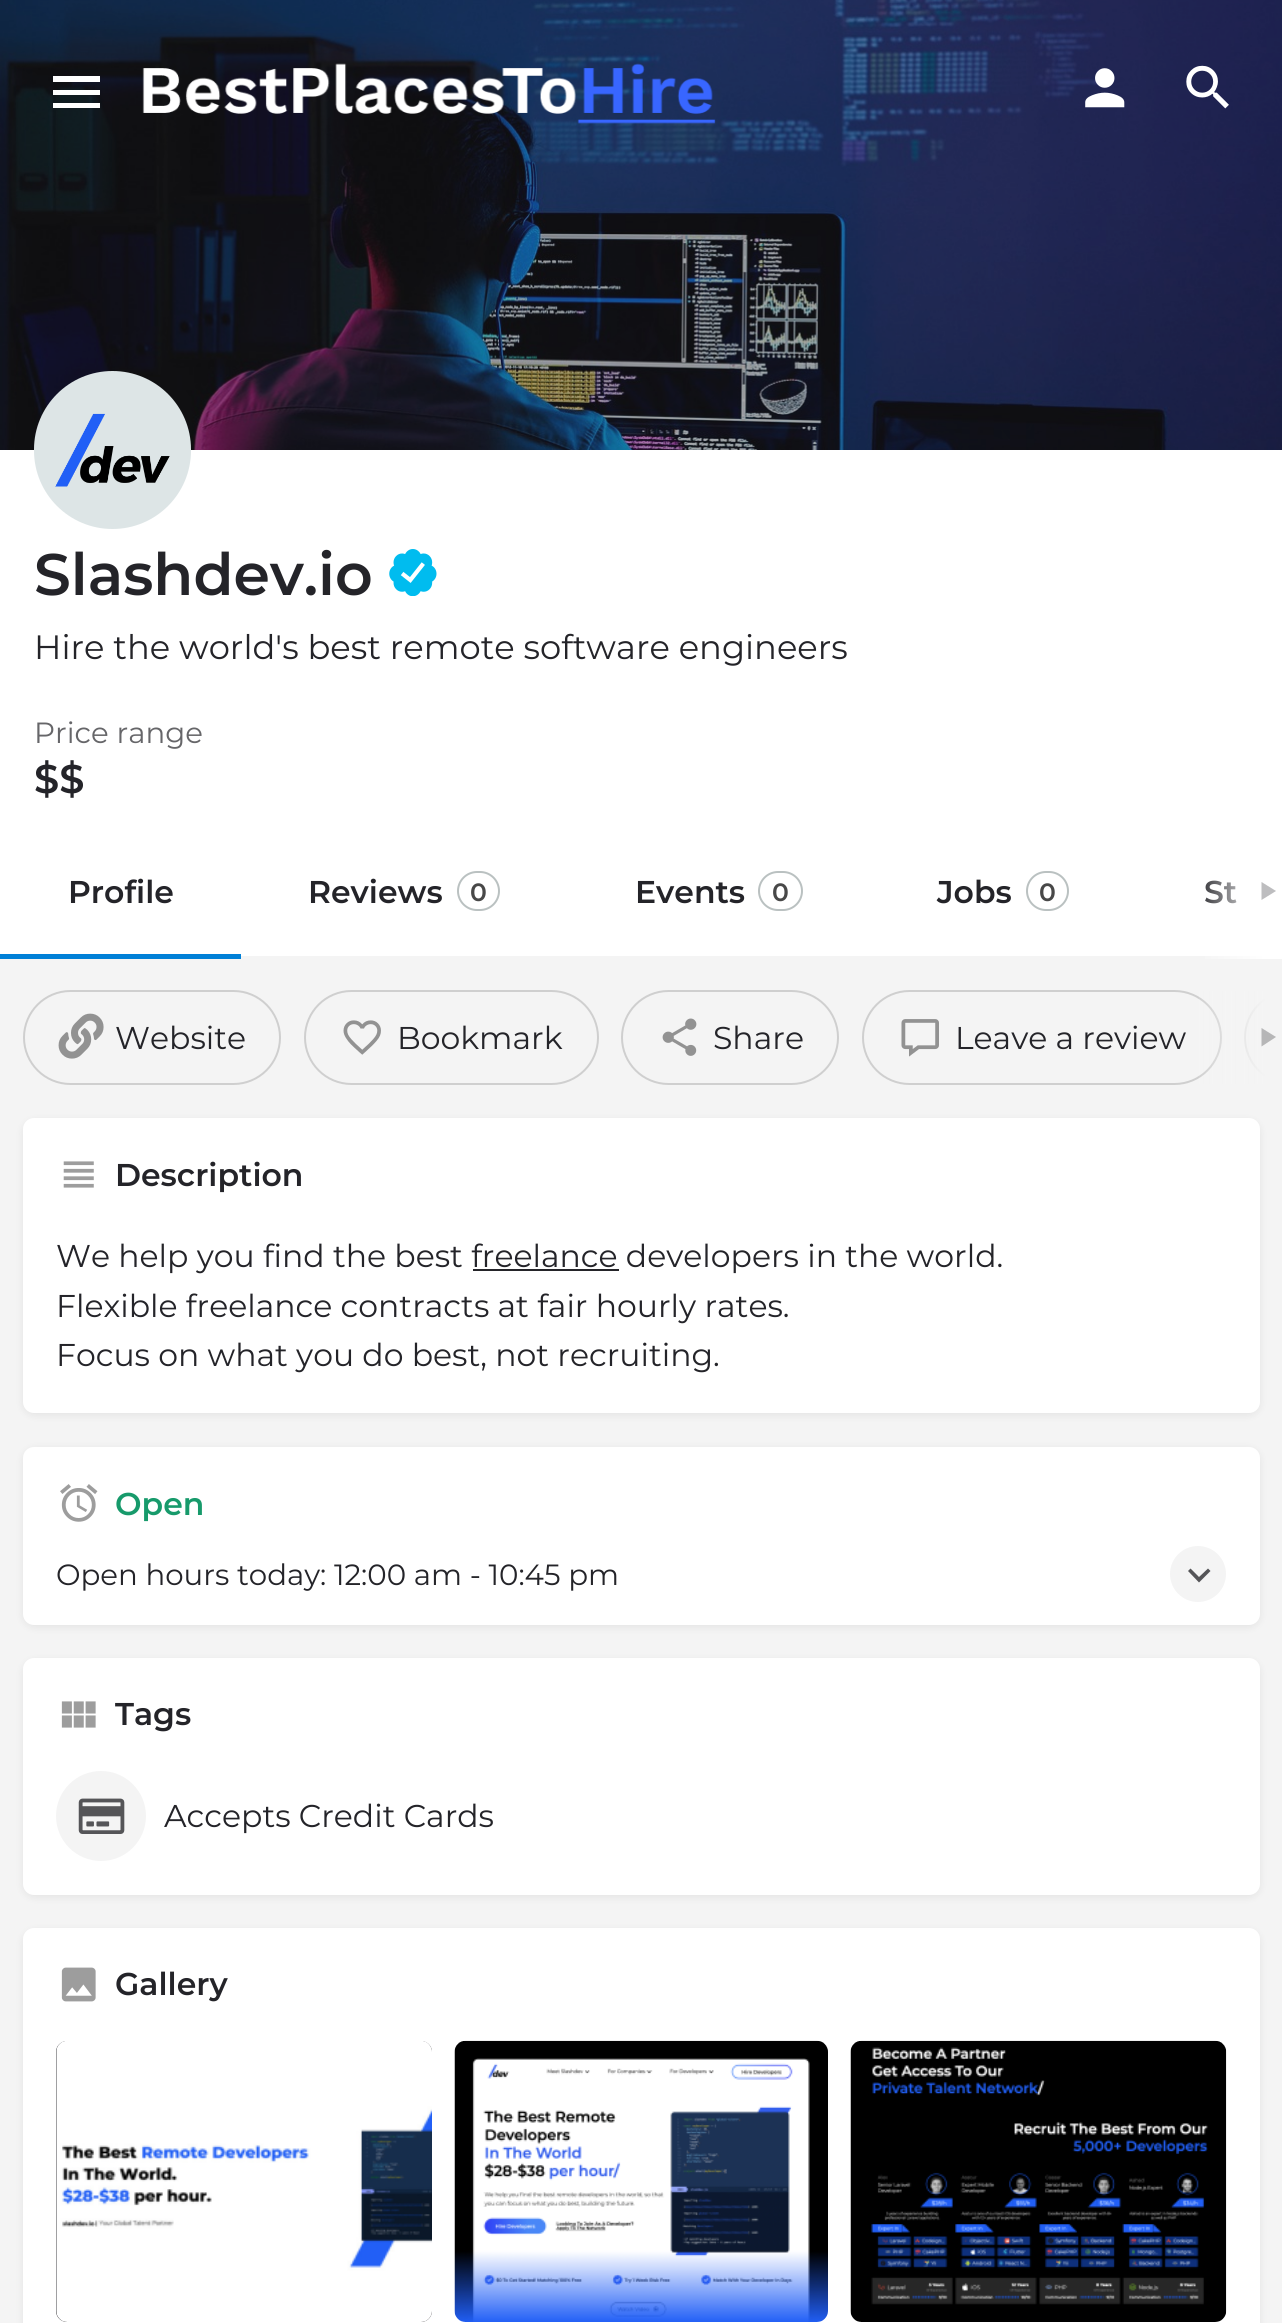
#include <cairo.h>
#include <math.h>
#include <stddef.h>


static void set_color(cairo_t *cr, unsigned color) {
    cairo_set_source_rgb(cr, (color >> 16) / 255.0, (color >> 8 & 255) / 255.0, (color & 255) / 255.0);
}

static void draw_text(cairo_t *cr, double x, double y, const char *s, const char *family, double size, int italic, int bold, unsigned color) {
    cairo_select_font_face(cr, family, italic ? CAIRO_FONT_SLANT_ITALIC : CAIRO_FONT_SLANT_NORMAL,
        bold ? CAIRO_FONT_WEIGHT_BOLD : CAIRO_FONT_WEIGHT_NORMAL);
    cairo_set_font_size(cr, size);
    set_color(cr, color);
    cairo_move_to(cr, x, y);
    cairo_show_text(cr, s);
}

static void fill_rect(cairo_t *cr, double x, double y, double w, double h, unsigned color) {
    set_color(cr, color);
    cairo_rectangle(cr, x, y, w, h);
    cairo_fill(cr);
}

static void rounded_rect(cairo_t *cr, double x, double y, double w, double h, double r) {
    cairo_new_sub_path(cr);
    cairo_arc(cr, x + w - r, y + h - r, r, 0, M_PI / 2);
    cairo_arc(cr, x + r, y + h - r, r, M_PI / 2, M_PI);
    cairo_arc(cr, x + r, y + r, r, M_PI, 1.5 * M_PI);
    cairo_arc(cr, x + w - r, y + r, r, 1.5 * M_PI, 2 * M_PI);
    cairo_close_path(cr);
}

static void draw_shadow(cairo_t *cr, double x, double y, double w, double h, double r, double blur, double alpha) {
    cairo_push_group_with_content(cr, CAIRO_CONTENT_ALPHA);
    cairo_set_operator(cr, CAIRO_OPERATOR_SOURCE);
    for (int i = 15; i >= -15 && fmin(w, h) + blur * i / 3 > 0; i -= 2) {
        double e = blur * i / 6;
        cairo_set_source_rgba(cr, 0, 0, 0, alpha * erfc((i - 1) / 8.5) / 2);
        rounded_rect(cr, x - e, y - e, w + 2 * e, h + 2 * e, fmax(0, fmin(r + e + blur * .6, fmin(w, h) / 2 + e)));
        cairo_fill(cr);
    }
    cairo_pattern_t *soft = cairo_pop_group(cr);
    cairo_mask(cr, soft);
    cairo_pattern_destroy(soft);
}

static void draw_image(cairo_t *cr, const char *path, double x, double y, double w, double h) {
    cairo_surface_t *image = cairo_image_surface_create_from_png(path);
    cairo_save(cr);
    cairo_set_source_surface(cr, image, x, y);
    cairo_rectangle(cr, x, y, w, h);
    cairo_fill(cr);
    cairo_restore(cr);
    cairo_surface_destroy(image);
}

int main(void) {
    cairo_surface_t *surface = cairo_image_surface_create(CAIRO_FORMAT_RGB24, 1282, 2323);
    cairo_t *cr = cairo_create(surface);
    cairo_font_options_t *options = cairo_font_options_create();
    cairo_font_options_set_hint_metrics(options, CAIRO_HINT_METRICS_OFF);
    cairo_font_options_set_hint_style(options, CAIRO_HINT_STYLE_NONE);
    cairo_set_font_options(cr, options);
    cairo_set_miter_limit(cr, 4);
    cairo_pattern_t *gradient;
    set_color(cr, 0xF4F4F4);
    cairo_paint(cr);
    draw_image(cr, "assets/img4.png", 0, 0, 1282, 450);
    set_color(cr, 0xFFFFFF);
    cairo_new_path(cr);
    cairo_move_to(cr, 53, 76);
    cairo_line_to(cr, 100, 76);
    cairo_line_to(cr, 100, 82);
    cairo_line_to(cr, 53, 82);
    cairo_close_path(cr);
    cairo_move_to(cr, 53, 95);
    cairo_line_to(cr, 53, 90);
    cairo_line_to(cr, 100, 90);
    cairo_line_to(cr, 100, 95);
    cairo_close_path(cr);
    cairo_move_to(cr, 53, 108);
    cairo_line_to(cr, 53, 103);
    cairo_line_to(cr, 100, 103);
    cairo_line_to(cr, 100, 108);
    cairo_close_path(cr);
    cairo_fill(cr);
    draw_image(cr, "assets/img1.png", 142, 63, 574, 61);
    draw_image(cr, "assets/img2.png", 1085, 68, 40, 40);
    draw_image(cr, "assets/img3.png", 1186, 65, 43, 44);
    fill_rect(cr, 0, 450, 1282, 506, 0xFFFFFF);
    set_color(cr, 0xDDE5E6);
    rounded_rect(cr, 34, 371, 157, 158, 78.5);
    cairo_fill(cr);
    draw_image(cr, "assets/img5.png", 55, 413, 115, 74);
    draw_text(cr, 34, 595, "Slashdev.io", "Montserrat SemiBold", 58.5, 0, 0, 0x242429);
    draw_image(cr, "assets/img6.png", 389, 549, 48, 47);
    draw_text(cr, 34, 659, "Hire the world's best remote software engineers", "Montserrat", 33.75, 0, 0, 0x242429);
    draw_text(cr, 34, 743, "Price range", "Montserrat", 29.25, 0, 0, 0x666669);
    draw_text(cr, 34, 793, "$$", "Montserrat SemiBold", 40, 0, 0, 0x242429);
    draw_text(cr, 68, 903, "Profile", "Montserrat SemiBold", 31.5, 0, 0, 0x242429);
    fill_rect(cr, 0, 954, 241, 5, 0x0080D7);
    draw_text(cr, 308, 903, "Reviews", "Montserrat SemiBold", 31.5, 0, 0, 0x242429);
    rounded_rect(cr, 458, 872, 41, 38, 19);
    set_color(cr, 0xBAC1C1);
    cairo_stroke(cr);
    draw_text(cr, 470, 901, "0", "Montserrat SemiBold", 25, 0, 0, 0x484848);
    draw_text(cr, 635, 903, "Events", "Montserrat SemiBold", 31.5, 0, 0, 0x242429);
    rounded_rect(cr, 759, 872, 43, 38, 19);
    set_color(cr, 0xBAC1C1);
    cairo_stroke(cr);
    draw_text(cr, 772, 901, "0", "Montserrat SemiBold", 25, 0, 0, 0x484848);
    draw_text(cr, 937, 903, "Jobs", "Montserrat SemiBold", 31.5, 0, 0, 0x242429);
    rounded_rect(cr, 1027, 872, 41, 38, 19);
    set_color(cr, 0xBAC1C1);
    cairo_stroke(cr);
    draw_text(cr, 1039, 901, "0", "Montserrat SemiBold", 25, 0, 0, 0x484848);
    draw_text(cr, 1204, 903, "St", "Montserrat SemiBold", 31.5, 0, 0, 0x242429);
    gradient = cairo_pattern_create_linear(1195, 891, 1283, 891);
    cairo_pattern_add_color_stop_rgba(gradient, 0, 1, 1, 1, 0);
    cairo_pattern_add_color_stop_rgba(gradient, 0.8, 1, 1, 1, 1);
    cairo_set_source(cr, gradient);
    cairo_pattern_destroy(gradient);
    cairo_rectangle(cr, 1205, 880, 77, 79);
    cairo_fill(cr);
    cairo_set_source_rgba(cr, 0.141, 0.141, 0.161, 0.3);
    cairo_new_path(cr);
    cairo_move_to(cr, 1261.5, 882);
    cairo_line_to(cr, 1276, 891);
    cairo_line_to(cr, 1261.5, 900);
    cairo_close_path(cr);
    cairo_fill(cr);
    rounded_rect(cr, 24, 991, 256, 93, 46.5);
    set_color(cr, 0xCFCFCF);
    cairo_stroke(cr);
    draw_image(cr, "assets/img7.png", 58, 1013, 46, 46);
    draw_text(cr, 115, 1049, "Website", "Montserrat", 31.5, 0, 0, 0x242429);
    rounded_rect(cr, 305, 991, 293, 93, 46.5);
    set_color(cr, 0xCFCFCF);
    cairo_stroke(cr);
    draw_image(cr, "assets/img8.png", 343, 1020, 38, 35);
    draw_text(cr, 397, 1049, "Bookmark", "Montserrat", 31.5, 0, 0, 0x242429);
    rounded_rect(cr, 622, 991, 216, 93, 46.5);
    set_color(cr, 0xCFCFCF);
    cairo_stroke(cr);
    draw_image(cr, "assets/img9.png", 662, 1018, 35, 38);
    draw_text(cr, 713, 1049, "Share", "Montserrat", 31.5, 0, 0, 0x242429);
    rounded_rect(cr, 863, 991, 358, 93, 46.5);
    set_color(cr, 0xCFCFCF);
    cairo_stroke(cr);
    draw_image(cr, "assets/img10.png", 901, 1019, 38, 38);
    draw_text(cr, 955, 1049, "Leave a review", "Montserrat", 31.5, 0, 0, 0x242429);
    rounded_rect(cr, 1245, 991, 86, 93, 46.5);
    set_color(cr, 0xCFCFCF);
    cairo_stroke(cr);
    gradient = cairo_pattern_create_linear(1195, 1037, 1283, 1037);
    cairo_pattern_add_color_stop_rgba(gradient, 0, 0.957, 0.957, 0.957, 0);
    cairo_pattern_add_color_stop_rgba(gradient, 0.8, 0.957, 0.957, 0.957, 1);
    cairo_set_source(cr, gradient);
    cairo_pattern_destroy(gradient);
    cairo_rectangle(cr, 1199, 991, 83, 93);
    cairo_fill(cr);
    set_color(cr, 0xB6B6B7);
    cairo_new_path(cr);
    cairo_move_to(cr, 1261.5, 1028);
    cairo_line_to(cr, 1276, 1037);
    cairo_line_to(cr, 1261.5, 1046.5);
    cairo_close_path(cr);
    cairo_fill(cr);
    set_color(cr, 0x000000);
    draw_shadow(cr, 23, 1121, 1237, 294, 11, 4.5, 0.07);
    set_color(cr, 0xFFFFFF);
    rounded_rect(cr, 23, 1118, 1237, 295, 11);
    cairo_fill(cr);
    draw_image(cr, "assets/img11.png", 63, 1161, 31, 27);
    draw_text(cr, 115, 1186, "Description", "Montserrat SemiBold", 31.5, 0, 0, 0x242429);
    draw_text(cr, 56, 1267, "We help you find the best freelance developers in the world.", "Montserrat", 31.5, 0, 0, 0x242429);
    fill_rect(cr, 473, 1269, 146, 2, 0x242429);
    draw_text(cr, 56, 1317, "Flexible freelance contracts at fair hourly rates.", "Montserrat", 31.5, 0, 0, 0x242429);
    draw_text(cr, 56, 1366, "Focus on what you do best, not recruiting.", "Montserrat", 31.5, 0, 0, 0x242429);
    set_color(cr, 0x000000);
    draw_shadow(cr, 23, 1449, 1237, 178, 11, 4.5, 0.07);
    set_color(cr, 0xFFFFFF);
    rounded_rect(cr, 23, 1447, 1237, 178, 11);
    cairo_fill(cr);
    draw_image(cr, "assets/img12.png", 60, 1484, 38, 38);
    draw_text(cr, 115, 1515, "Open", "Montserrat SemiBold", 31.5, 0, 0, 0x179A6B);
    draw_text(cr, 56, 1585, "Open hours today: 12:00 am - 10:45 pm", "Montserrat", 29.25, 0, 0, 0x242429);
    set_color(cr, 0xF4F4F4);
    cairo_new_path(cr);
    cairo_arc(cr, 1198, 1574, 28, 0, 2 * M_PI);
    cairo_fill(cr);
    set_color(cr, 0x555558);
    cairo_new_path(cr);
    cairo_move_to(cr, 1208, 1568.5);
    cairo_line_to(cr, 1210.5, 1571);
    cairo_line_to(cr, 1199, 1582.5);
    cairo_line_to(cr, 1188, 1571);
    cairo_line_to(cr, 1190.5, 1568.5);
    cairo_line_to(cr, 1199, 1577);
    cairo_close_path(cr);
    cairo_fill(cr);
    set_color(cr, 0x000000);
    draw_shadow(cr, 23, 1661, 1237, 236, 11, 4.5, 0.07);
    set_color(cr, 0xFFFFFF);
    rounded_rect(cr, 23, 1658, 1237, 237, 11);
    cairo_fill(cr);
    draw_image(cr, "assets/img13.png", 61, 1701, 35, 27);
    draw_text(cr, 115, 1725, "Tags", "Montserrat SemiBold", 31.5, 0, 0, 0x242429);
    set_color(cr, 0xF4F4F4);
    cairo_new_path(cr);
    cairo_arc(cr, 101, 1816, 45, 0, 2 * M_PI);
    cairo_fill(cr);
    draw_image(cr, "assets/img14.png", 78, 1798, 47, 36);
    draw_text(cr, 164, 1827, "Accepts Credit Cards", "Montserrat", 31.5, 0, 0, 0x242429);
    set_color(cr, 0x000000);
    draw_shadow(cr, 23, 1931, 1237, 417, 11, 4.5, 0.07);
    set_color(cr, 0xFFFFFF);
    rounded_rect(cr, 23, 1928, 1237, 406, 11);
    cairo_fill(cr);
    draw_image(cr, "assets/img15.png", 61, 1967, 35, 35);
    draw_text(cr, 115, 1995, "Gallery", "Montserrat SemiBold", 31.5, 0, 0, 0x242429);
    rounded_rect(cr, 56, 2041, 376, 281, 11);
    cairo_fill(cr);
    draw_image(cr, "assets/img16.png", 56, 2041, 376, 281);
    draw_image(cr, "assets/img17.png", 454, 2040, 374, 282);
    draw_image(cr, "assets/img18.png", 850, 2040, 377, 282);
    cairo_surface_write_to_png(surface, "output.png");
    cairo_font_options_destroy(options);
    cairo_destroy(cr);
    cairo_surface_destroy(surface);
    return 0;
}
